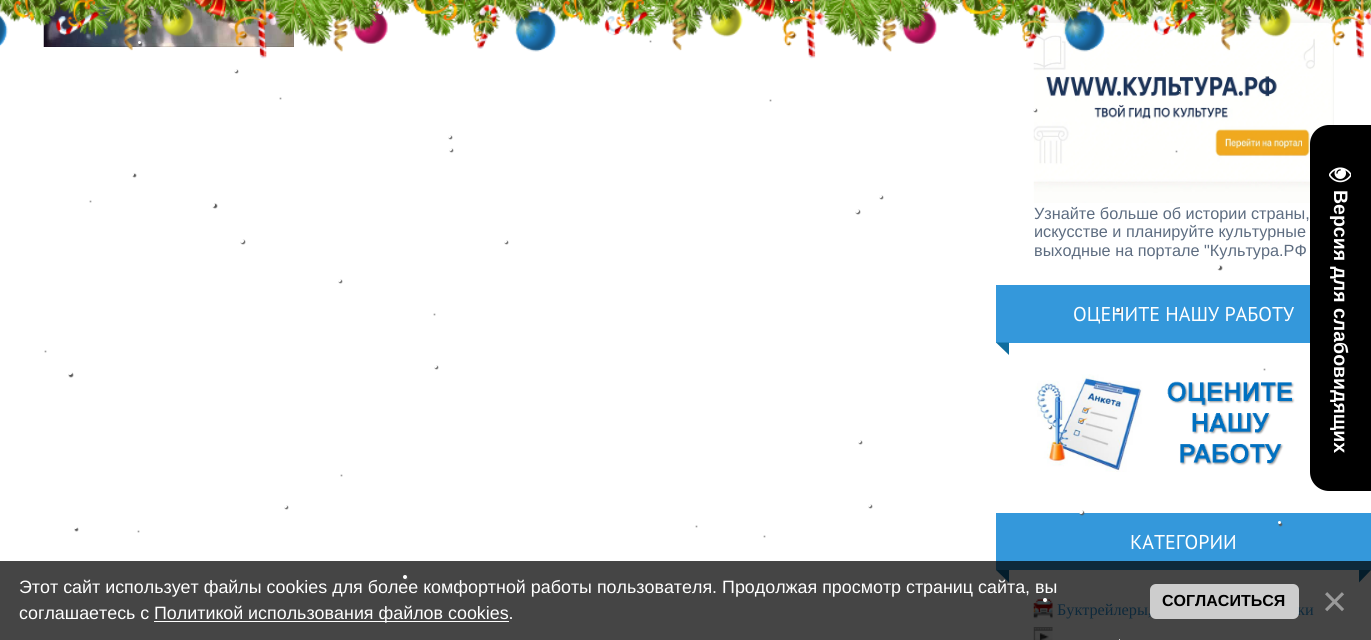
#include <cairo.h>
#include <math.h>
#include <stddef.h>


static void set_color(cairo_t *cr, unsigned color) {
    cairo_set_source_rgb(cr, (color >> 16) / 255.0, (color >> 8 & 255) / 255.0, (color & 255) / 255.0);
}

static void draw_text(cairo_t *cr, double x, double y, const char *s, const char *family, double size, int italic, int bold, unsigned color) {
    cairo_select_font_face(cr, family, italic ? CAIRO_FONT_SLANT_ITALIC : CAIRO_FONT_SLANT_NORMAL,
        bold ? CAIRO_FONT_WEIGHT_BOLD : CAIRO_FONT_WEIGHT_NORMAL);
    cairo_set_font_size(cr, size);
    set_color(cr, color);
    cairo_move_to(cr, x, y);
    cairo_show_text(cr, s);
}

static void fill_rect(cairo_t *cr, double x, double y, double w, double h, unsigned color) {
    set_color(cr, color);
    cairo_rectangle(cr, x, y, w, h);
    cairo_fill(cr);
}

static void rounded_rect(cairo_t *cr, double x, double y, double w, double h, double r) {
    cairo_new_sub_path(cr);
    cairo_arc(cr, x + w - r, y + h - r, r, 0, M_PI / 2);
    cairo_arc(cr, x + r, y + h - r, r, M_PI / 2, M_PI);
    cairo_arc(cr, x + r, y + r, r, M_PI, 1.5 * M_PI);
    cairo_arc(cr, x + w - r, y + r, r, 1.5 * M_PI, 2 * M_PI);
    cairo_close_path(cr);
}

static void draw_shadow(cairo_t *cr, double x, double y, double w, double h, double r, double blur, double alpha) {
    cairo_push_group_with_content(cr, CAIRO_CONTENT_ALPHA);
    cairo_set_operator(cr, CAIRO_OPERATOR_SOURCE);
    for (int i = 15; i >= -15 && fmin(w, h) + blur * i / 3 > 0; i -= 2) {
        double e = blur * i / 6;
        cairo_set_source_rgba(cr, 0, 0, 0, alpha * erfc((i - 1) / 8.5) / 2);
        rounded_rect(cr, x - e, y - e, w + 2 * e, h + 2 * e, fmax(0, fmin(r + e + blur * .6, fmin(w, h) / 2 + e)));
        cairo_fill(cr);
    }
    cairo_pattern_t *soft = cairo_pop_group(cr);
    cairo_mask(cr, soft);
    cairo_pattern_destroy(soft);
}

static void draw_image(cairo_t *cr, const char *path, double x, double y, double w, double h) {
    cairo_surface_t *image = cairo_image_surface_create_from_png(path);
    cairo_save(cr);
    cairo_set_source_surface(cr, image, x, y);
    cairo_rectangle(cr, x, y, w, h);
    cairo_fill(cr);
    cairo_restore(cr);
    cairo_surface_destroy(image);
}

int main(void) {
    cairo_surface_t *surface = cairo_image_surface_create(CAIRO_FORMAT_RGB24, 1371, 640);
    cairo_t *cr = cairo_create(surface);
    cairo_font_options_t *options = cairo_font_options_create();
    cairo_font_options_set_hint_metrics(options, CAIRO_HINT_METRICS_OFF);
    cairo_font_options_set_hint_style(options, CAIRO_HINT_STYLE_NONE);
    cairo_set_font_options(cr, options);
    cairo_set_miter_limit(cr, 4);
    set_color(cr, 0xFFFFFF);
    cairo_paint(cr);
    fill_rect(cr, 0, 561, 1371, 79, 0x454545);
    draw_image(cr, "assets/img3.png", 43, 0, 251, 47);
    draw_image(cr, "assets/img4.png", 1033, 3, 301, 200);
    draw_image(cr, "assets/img1.png", 0, 0, 1371, 59);
    set_color(cr, 0x555555);
    draw_shadow(cr, 791, 1, 3, 3, 1.5, 0.5, 1);
    set_color(cr, 0xFFFFFF);
    cairo_arc(cr, 791.5, 1.5, 1.5, 0, 2 * M_PI);
    cairo_fill(cr);
    set_color(cr, 0x555555);
    draw_shadow(cr, 379, 11, 4, 4, 2, 0.5, 1);
    set_color(cr, 0xFFFFFF);
    cairo_arc(cr, 380, 12, 2, 0, 2 * M_PI);
    cairo_fill(cr);
    set_color(cr, 0x555555);
    draw_shadow(cr, 139, 43, 3, 3, 1.5, 0.5, 1);
    set_color(cr, 0xFFFFFF);
    cairo_arc(cr, 139.5, 42.5, 1.5, 0, 2 * M_PI);
    cairo_fill(cr);
    set_color(cr, 0x555555);
    draw_shadow(cr, 650, 41, 1, 1, 0.5, 0.5, 1);
    draw_shadow(cr, 235, 70, 3, 3, 1.5, 0.5, 1);
    set_color(cr, 0xFFFFFF);
    cairo_arc(cr, 235.5, 70.5, 1.5, 0, 2 * M_PI);
    cairo_fill(cr);
    set_color(cr, 0x555555);
    draw_shadow(cr, 1180, 93, 1, 1, 0.5, 0.5, 1);
    set_color(cr, 0xFFFFFF);
    cairo_arc(cr, 1179.5, 91.5, 0.5, 0, 2 * M_PI);
    cairo_fill(cr);
    set_color(cr, 0x555555);
    draw_shadow(cr, 280, 98, 1, 1, 0.5, 0.5, 1);
    draw_shadow(cr, 770, 100, 1, 1, 0.5, 0.5, 1);
    draw_shadow(cr, 1034, 109, 3, 3, 1.5, 0.5, 1);
    set_color(cr, 0xFFFFFF);
    cairo_arc(cr, 1034.5, 109.5, 1.5, 0, 2 * M_PI);
    cairo_fill(cr);
    set_color(cr, 0x555555);
    draw_shadow(cr, 449, 136, 3, 3, 1.5, 0.5, 1);
    set_color(cr, 0xFFFFFF);
    cairo_arc(cr, 449.5, 136.5, 1.5, 0, 2 * M_PI);
    cairo_fill(cr);
    set_color(cr, 0x555555);
    draw_shadow(cr, 450, 149, 3, 3, 1.5, 0.5, 1);
    set_color(cr, 0xFFFFFF);
    cairo_arc(cr, 450.5, 149.5, 1.5, 0, 2 * M_PI);
    cairo_fill(cr);
    set_color(cr, 0x555555);
    draw_shadow(cr, 1176, 151, 1, 1, 0.5, 0.5, 1);
    draw_shadow(cr, 133, 174, 3, 3, 1.5, 0.5, 1);
    set_color(cr, 0xFFFFFF);
    cairo_arc(cr, 132.5, 174.5, 1.5, 0, 2 * M_PI);
    cairo_fill(cr);
    set_color(cr, 0x555555);
    draw_shadow(cr, 90, 201, 1, 1, 0.5, 0.5, 1);
    draw_shadow(cr, 213, 204, 4, 4, 2, 0.5, 1);
    set_color(cr, 0xFFFFFF);
    cairo_arc(cr, 213, 205, 2, 0, 2 * M_PI);
    cairo_fill(cr);
    set_color(cr, 0x555555);
    draw_shadow(cr, 880, 196, 3, 3, 1.5, 0.5, 1);
    set_color(cr, 0xFFFFFF);
    cairo_arc(cr, 880.5, 196.5, 1.5, 0, 2 * M_PI);
    cairo_fill(cr);
    set_color(cr, 0x555555);
    draw_shadow(cr, 856, 210, 4, 4, 2, 0.5, 1);
    set_color(cr, 0xFFFFFF);
    cairo_arc(cr, 857, 211, 2, 0, 2 * M_PI);
    cairo_fill(cr);
    set_color(cr, 0x555555);
    draw_shadow(cr, 241, 240, 4, 4, 2, 0.5, 1);
    set_color(cr, 0xFFFFFF);
    cairo_arc(cr, 242, 241, 2, 0, 2 * M_PI);
    cairo_fill(cr);
    set_color(cr, 0x555555);
    draw_shadow(cr, 505, 241, 3, 3, 1.5, 0.5, 1);
    set_color(cr, 0xFFFFFF);
    cairo_arc(cr, 505.5, 241.5, 1.5, 0, 2 * M_PI);
    cairo_fill(cr);
    set_color(cr, 0x555555);
    draw_shadow(cr, 1218, 266, 4, 4, 2, 0.5, 1);
    set_color(cr, 0xFFFFFF);
    cairo_arc(cr, 1218, 267, 2, 0, 2 * M_PI);
    cairo_fill(cr);
    set_color(cr, 0x555555);
    draw_shadow(cr, 339, 280, 3, 3, 1.5, 0.5, 1);
    set_color(cr, 0xFFFFFF);
    cairo_arc(cr, 339.5, 280.5, 1.5, 0, 2 * M_PI);
    cairo_fill(cr);
    set_color(cr, 0x555555);
    draw_shadow(cr, 434, 314, 1, 1, 0.5, 0.5, 1);
    fill_rect(cr, 996, 285, 314, 58, 0x3498DB);
    set_color(cr, 0x555555);
    draw_shadow(cr, 1118, 309, 4, 4, 2, 0.5, 1);
    set_color(cr, 0xFFFFFF);
    cairo_arc(cr, 1118, 310, 2, 0, 2 * M_PI);
    cairo_fill(cr);
    set_color(cr, 0x555555);
    draw_shadow(cr, 45, 351, 1, 1, 0.5, 0.5, 1);
    draw_shadow(cr, 69, 373, 4, 4, 2, 0.5, 1);
    set_color(cr, 0xFFFFFF);
    cairo_arc(cr, 70, 373, 2, 0, 2 * M_PI);
    cairo_fill(cr);
    set_color(cr, 0x555555);
    draw_shadow(cr, 435, 366, 3, 3, 1.5, 0.5, 1);
    set_color(cr, 0xFFFFFF);
    cairo_arc(cr, 435.5, 366.5, 1.5, 0, 2 * M_PI);
    cairo_fill(cr);
    set_color(cr, 0x555555);
    draw_shadow(cr, 1264, 369, 1, 1, 0.5, 0.5, 1);
    draw_image(cr, "assets/img5.png", 1035, 374, 260, 98);
    draw_shadow(cr, 1049, 426, 3, 3, 1.5, 0.5, 1);
    set_color(cr, 0xFFFFFF);
    cairo_arc(cr, 1049.5, 426.5, 1.5, 0, 2 * M_PI);
    cairo_fill(cr);
    set_color(cr, 0x555555);
    draw_shadow(cr, 859, 441, 3, 3, 1.5, 0.5, 1);
    set_color(cr, 0xFFFFFF);
    cairo_arc(cr, 859.5, 441.5, 1.5, 0, 2 * M_PI);
    cairo_fill(cr);
    set_color(cr, 0x555555);
    draw_shadow(cr, 341, 475, 1, 1, 0.5, 0.5, 1);
    draw_shadow(cr, 285, 506, 3, 3, 1.5, 0.5, 1);
    set_color(cr, 0xFFFFFF);
    cairo_arc(cr, 285.5, 506.5, 1.5, 0, 2 * M_PI);
    cairo_fill(cr);
    set_color(cr, 0x555555);
    draw_shadow(cr, 869, 505, 3, 3, 1.5, 0.5, 1);
    set_color(cr, 0xFFFFFF);
    cairo_arc(cr, 869.5, 505.5, 1.5, 0, 2 * M_PI);
    cairo_fill(cr);
    fill_rect(cr, 996, 513, 375, 48, 0x3498DB);
    set_color(cr, 0x555555);
    draw_shadow(cr, 1080, 511, 4, 4, 2, 0.5, 1);
    set_color(cr, 0xFFFFFF);
    cairo_arc(cr, 1081, 512, 2, 0, 2 * M_PI);
    cairo_fill(cr);
    set_color(cr, 0x555555);
    draw_shadow(cr, 75, 528, 3, 3, 1.5, 0.5, 1);
    set_color(cr, 0xFFFFFF);
    cairo_arc(cr, 75.5, 527.5, 1.5, 0, 2 * M_PI);
    cairo_fill(cr);
    set_color(cr, 0x555555);
    draw_shadow(cr, 138, 531, 1, 1, 0.5, 0.5, 1);
    draw_shadow(cr, 696, 526, 1, 1, 0.5, 0.5, 1);
    draw_shadow(cr, 1279, 523, 3, 3, 1.5, 0.5, 1);
    set_color(cr, 0xFFFFFF);
    cairo_arc(cr, 1279.5, 522.5, 1.5, 0, 2 * M_PI);
    cairo_fill(cr);
    set_color(cr, 0x555555);
    draw_shadow(cr, 764, 536, 1, 1, 0.5, 0.5, 1);
    draw_shadow(cr, 404, 576, 4, 4, 2, 0.5, 1);
    set_color(cr, 0xFFFFFF);
    cairo_arc(cr, 405, 577, 2, 0, 2 * M_PI);
    cairo_fill(cr);
    draw_image(cr, "assets/img6.png", 1033, 599, 20, 20);
    set_color(cr, 0x555555);
    draw_shadow(cr, 1044, 599, 4, 4, 2, 0.5, 1);
    set_color(cr, 0xFFFFFF);
    cairo_arc(cr, 1045, 600, 2, 0, 2 * M_PI);
    cairo_fill(cr);
    cairo_arc(cr, 1119.5, 639.5, 0.5, 0, 2 * M_PI);
    cairo_fill(cr);
    set_color(cr, 0x000000);
    cairo_new_path(cr);
    cairo_move_to(cr, 1329, 125);
    cairo_line_to(cr, 1371, 125);
    cairo_line_to(cr, 1371, 491);
    cairo_line_to(cr, 1329, 491);
    cairo_curve_to(cr, 1318.5, 491, 1310, 482.5, 1310, 472);
    cairo_line_to(cr, 1310, 144);
    cairo_curve_to(cr, 1310, 133.5, 1318.5, 125, 1329, 125);
    cairo_close_path(cr);
    cairo_fill(cr);
    draw_image(cr, "assets/img2.png", 1329, 167, 22, 16);
    cairo_save(cr);
    cairo_translate(cr, 1334, 190);
    cairo_rotate(cr, 90 * M_PI / 180);
    draw_text(cr, 0, 0, "Версия для слабовидящих", "Liberation Sans", 19.5, 0, 1, 0xFFFFFF);
    cairo_restore(cr);
    draw_text(cr, 1034, 219, "Узнайте больше об истории страны,", "Liberation Sans", 16.25, 0, 0, 0x5E6D81);
    draw_text(cr, 1034, 237, "искусстве и планируйте культурные", "Liberation Sans", 16.25, 0, 0, 0x5E6D81);
    draw_text(cr, 1034, 256, "выходные на портале \"Культура.РФ", "Liberation Sans", 16.25, 0, 0, 0x5E6D81);
    draw_text(cr, 1073, 321, "ОЦЕНИТЕ НАШУ РАБОТУ", "PT Sans", 20, 0, 0, 0xFFFFFF);
    set_color(cr, 0x0F6D9E);
    cairo_new_path(cr);
    cairo_move_to(cr, 996, 342.5);
    cairo_line_to(cr, 1009, 342.5);
    cairo_line_to(cr, 1009, 355);
    cairo_close_path(cr);
    cairo_fill(cr);
    fill_rect(cr, 996, 561, 375, 9, 0x0E293B);
    draw_text(cr, 1130, 549, "КАТЕГОРИИ", "PT Sans", 20, 0, 0, 0xFFFFFF);
    set_color(cr, 0x041D2B);
    cairo_new_path(cr);
    cairo_move_to(cr, 996, 570);
    cairo_line_to(cr, 1009, 570);
    cairo_line_to(cr, 1009, 582.5);
    cairo_close_path(cr);
    cairo_fill(cr);
    cairo_new_path(cr);
    cairo_move_to(cr, 1359, 570);
    cairo_line_to(cr, 1371, 570);
    cairo_line_to(cr, 1359, 582.5);
    cairo_close_path(cr);
    cairo_fill(cr);
    draw_text(cr, 1057, 615, "Буктрейлеры,", "Liberation Serif", 16.25, 0, 0, 0x0E293B);
    draw_text(cr, 1297, 615, "ки", "Liberation Serif", 16.25, 0, 0, 0x0E293B);
    draw_image(cr, "assets/img7.png", 1033, 627, 20, 13);
    draw_text(cr, 19, 593, "Этот сайт использует файлы cookies для более комфортной работы пользователя. Продолжая просмотр страниц сайта, вы", "Liberation Sans", 17.88, 0, 0, 0xFFFFFF);
    draw_text(cr, 19, 619, "соглашаетесь с", "Liberation Sans", 17.88, 0, 0, 0xFFFFFF);
    fill_rect(cr, 154, 621, 355, 1, 0xFFFFFF);
    draw_text(cr, 154, 619, "Политикой использования файлов cookies.", "Liberation Sans", 17.88, 0, 0, 0xFFFFFF);
    cairo_set_source_rgba(cr, 1, 1, 1, 0.73);
    rounded_rect(cr, 1150, 584, 149, 35, 6);
    cairo_fill(cr);
    draw_text(cr, 1162, 606, "СОГЛАСИТЬСЯ", "Liberation Sans", 16, 0, 1, 0x000000);
    draw_text(cr, 1322, 616, "×", "Liberation Sans", 43, 0, 0, 0x999999);
    cairo_surface_write_to_png(surface, "output.png");
    cairo_font_options_destroy(options);
    cairo_destroy(cr);
    cairo_surface_destroy(surface);
    return 0;
}
